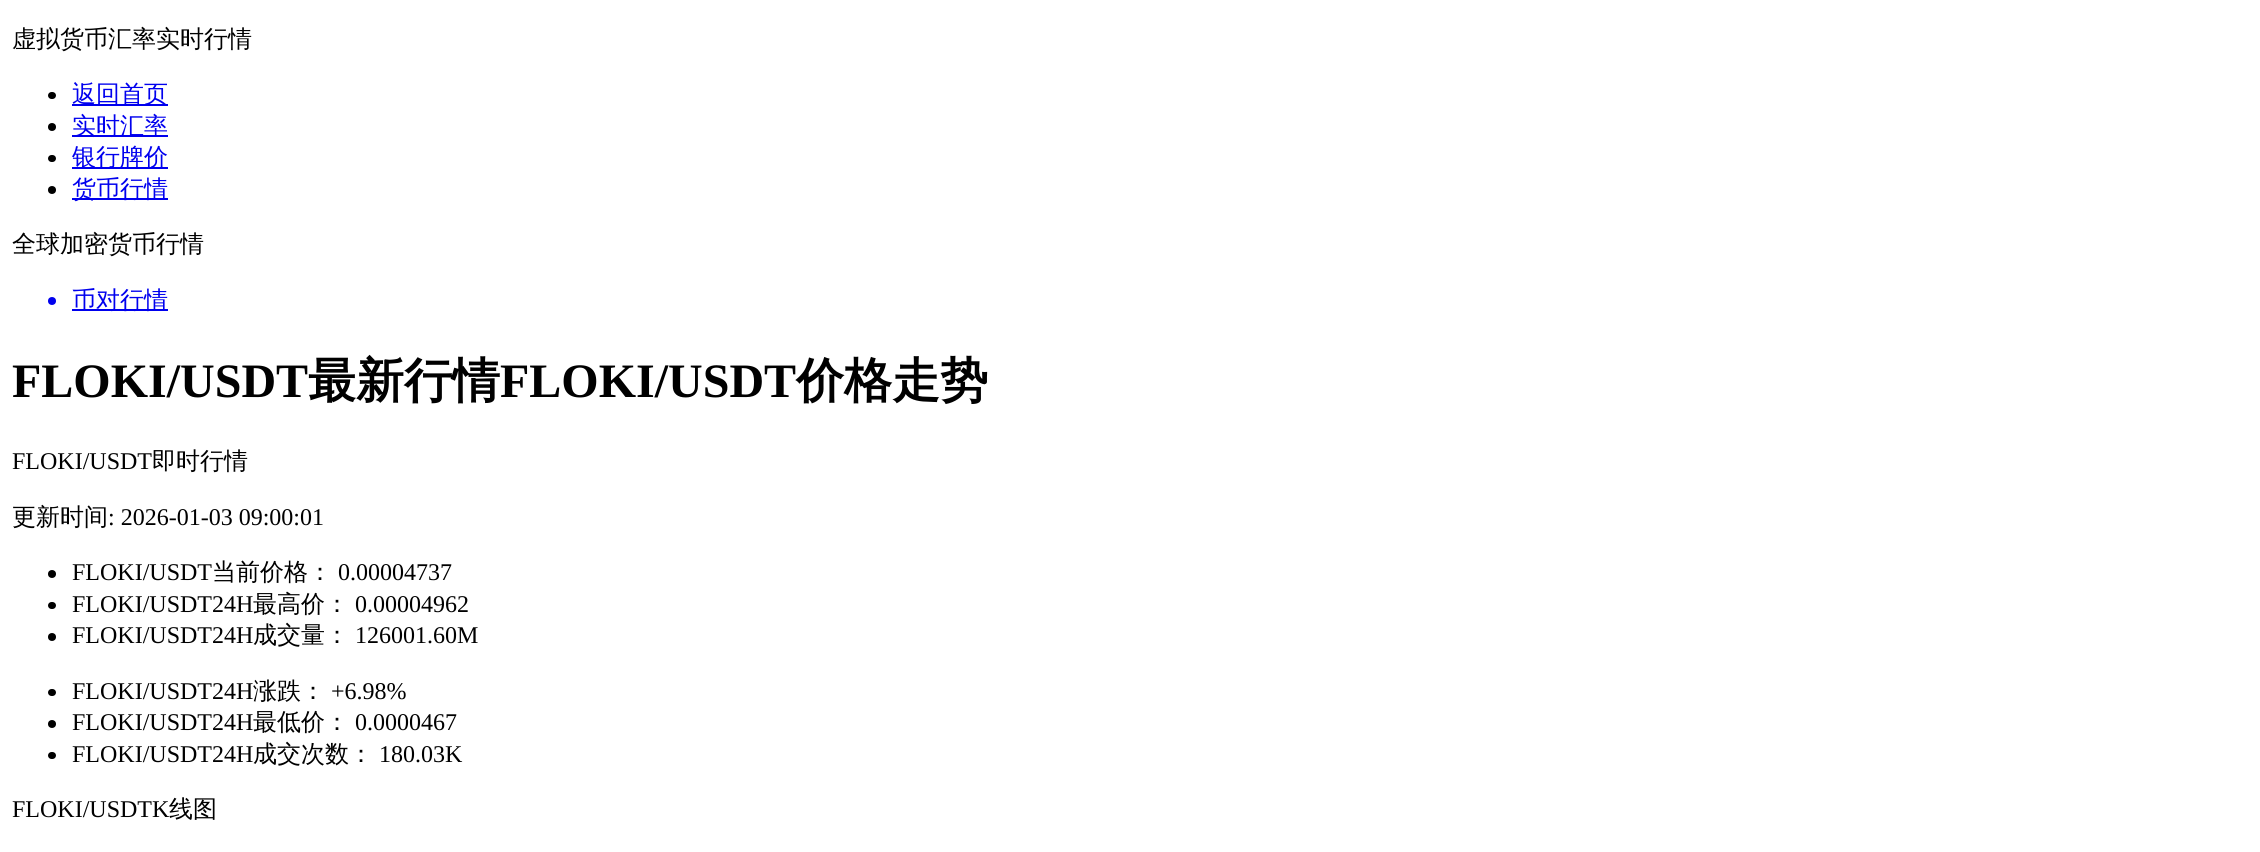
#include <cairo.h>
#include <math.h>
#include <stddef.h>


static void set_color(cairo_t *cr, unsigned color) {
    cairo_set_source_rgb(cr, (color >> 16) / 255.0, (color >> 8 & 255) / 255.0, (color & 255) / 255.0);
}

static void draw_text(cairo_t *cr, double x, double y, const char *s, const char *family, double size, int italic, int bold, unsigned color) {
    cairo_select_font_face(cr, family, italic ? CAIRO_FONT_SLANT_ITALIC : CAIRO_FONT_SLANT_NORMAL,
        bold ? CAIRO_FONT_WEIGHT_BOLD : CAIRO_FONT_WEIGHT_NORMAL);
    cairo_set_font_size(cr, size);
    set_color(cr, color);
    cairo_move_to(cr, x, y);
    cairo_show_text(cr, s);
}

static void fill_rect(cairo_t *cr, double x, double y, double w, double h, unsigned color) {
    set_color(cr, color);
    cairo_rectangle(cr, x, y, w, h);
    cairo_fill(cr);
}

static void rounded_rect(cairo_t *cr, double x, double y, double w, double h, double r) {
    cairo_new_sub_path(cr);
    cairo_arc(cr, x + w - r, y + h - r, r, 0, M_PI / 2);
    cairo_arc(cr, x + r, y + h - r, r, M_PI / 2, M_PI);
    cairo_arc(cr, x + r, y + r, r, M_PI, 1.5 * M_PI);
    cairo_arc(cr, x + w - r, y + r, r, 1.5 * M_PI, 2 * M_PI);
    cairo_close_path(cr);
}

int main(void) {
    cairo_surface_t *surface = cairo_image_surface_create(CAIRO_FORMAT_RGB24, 2260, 852);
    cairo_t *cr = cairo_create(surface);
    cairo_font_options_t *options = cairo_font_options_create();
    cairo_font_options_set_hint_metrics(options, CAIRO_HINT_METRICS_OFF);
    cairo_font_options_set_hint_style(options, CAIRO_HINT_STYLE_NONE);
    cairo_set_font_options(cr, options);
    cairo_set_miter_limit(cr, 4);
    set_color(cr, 0xFFFFFF);
    cairo_paint(cr);
    draw_text(cr, 12, 47, "虚拟货币汇率实时行情", "WenQuanYi Zen Hei Medium", 24, 0, 0, 0x000000);
    rounded_rect(cr, 48, 92, 8, 7, 3.5);
    cairo_fill(cr);
    fill_rect(cr, 72, 104, 96, 2, 0x0000EE);
    draw_text(cr, 72, 102, "返回首页", "WenQuanYi Zen Hei Medium", 24, 0, 0, 0x0000EE);
    set_color(cr, 0x000000);
    cairo_new_path(cr);
    cairo_arc(cr, 52, 127, 4, 0, 2 * M_PI);
    cairo_fill(cr);
    fill_rect(cr, 72, 135, 96, 2, 0x0000EE);
    draw_text(cr, 72, 134, "实时汇率", "WenQuanYi Zen Hei Medium", 24, 0, 0, 0x0000EE);
    set_color(cr, 0x000000);
    rounded_rect(cr, 48, 155, 8, 7, 3.5);
    cairo_fill(cr);
    fill_rect(cr, 72, 167, 96, 2, 0x0000EE);
    draw_text(cr, 72, 165, "银行牌价", "WenQuanYi Zen Hei Medium", 24, 0, 0, 0x0000EE);
    set_color(cr, 0x000000);
    cairo_new_path(cr);
    cairo_arc(cr, 52, 190, 4, 0, 2 * M_PI);
    cairo_fill(cr);
    fill_rect(cr, 72, 198, 96, 2, 0x0000EE);
    draw_text(cr, 72, 197, "货币行情", "WenQuanYi Zen Hei Medium", 24, 0, 0, 0x0000EE);
    draw_text(cr, 12, 252, "全球加密货币行情", "WenQuanYi Zen Hei Medium", 24, 0, 0, 0x000000);
    set_color(cr, 0x0000EE);
    cairo_new_path(cr);
    cairo_arc(cr, 52, 301, 4, 0, 2 * M_PI);
    cairo_fill(cr);
    fill_rect(cr, 72, 309, 96, 2, 0x0000EE);
    draw_text(cr, 72, 308, "币对行情", "WenQuanYi Zen Hei Medium", 24, 0, 0, 0x0000EE);
    draw_text(cr, 12, 397, "FLOKI/USDT", "Liberation Serif", 48, 0, 1, 0x000000);
    draw_text(cr, 308, 397, "最新行情", "WenQuanYi Zen Hei", 48, 0, 1, 0x000000);
    draw_text(cr, 500, 397, "FLOKI/USDT", "Liberation Serif", 48, 0, 1, 0x000000);
    draw_text(cr, 796, 397, "价格走势", "WenQuanYi Zen Hei", 48, 0, 1, 0x000000);
    draw_text(cr, 12, 469, "FLOKI/USDT", "Liberation Serif", 24, 0, 0, 0x000000);
    draw_text(cr, 152, 469, "即时行情", "WenQuanYi Zen Hei Medium", 24, 0, 0, 0x000000);
    draw_text(cr, 12, 525, "更新时间", "WenQuanYi Zen Hei Medium", 24, 0, 0, 0x000000);
    draw_text(cr, 108, 525, ": 2026-01-03 09:00:01", "Liberation Serif", 24, 0, 0, 0x000000);
    cairo_new_path(cr);
    cairo_arc(cr, 52, 574, 4, 0, 2 * M_PI);
    cairo_fill(cr);
    draw_text(cr, 72, 580, "FLOKI/USDT", "Liberation Serif", 24, 0, 0, 0x000000);
    draw_text(cr, 212, 580, "当前价格：", "WenQuanYi Zen Hei Medium", 24, 0, 0, 0x000000);
    draw_text(cr, 338, 580, "0.00004737", "Liberation Serif", 24, 0, 0, 0x000000);
    rounded_rect(cr, 48, 602, 8, 7, 3.5);
    cairo_fill(cr);
    draw_text(cr, 72, 612, "FLOKI/USDT24H", "Liberation Serif", 24, 0, 0, 0x000000);
    draw_text(cr, 253, 612, "最高价：", "WenQuanYi Zen Hei Medium", 24, 0, 0, 0x000000);
    draw_text(cr, 355, 612, "0.00004962", "Liberation Serif", 24, 0, 0, 0x000000);
    cairo_new_path(cr);
    cairo_arc(cr, 52, 637, 4, 0, 2 * M_PI);
    cairo_fill(cr);
    draw_text(cr, 72, 643, "FLOKI/USDT24H", "Liberation Serif", 24, 0, 0, 0x000000);
    draw_text(cr, 253, 643, "成交量：", "WenQuanYi Zen Hei Medium", 24, 0, 0, 0x000000);
    draw_text(cr, 355, 643, "126001.60M", "Liberation Serif", 24, 0, 0, 0x000000);
    rounded_rect(cr, 48, 689, 8, 7, 3.5);
    cairo_fill(cr);
    draw_text(cr, 72, 699, "FLOKI/USDT24H", "Liberation Serif", 24, 0, 0, 0x000000);
    draw_text(cr, 253, 699, "涨跌：", "WenQuanYi Zen Hei Medium", 24, 0, 0, 0x000000);
    draw_text(cr, 331, 699, "+6.98%", "Liberation Serif", 24, 0, 0, 0x000000);
    cairo_new_path(cr);
    cairo_arc(cr, 52, 724, 4, 0, 2 * M_PI);
    cairo_fill(cr);
    draw_text(cr, 72, 730, "FLOKI/USDT24H", "Liberation Serif", 24, 0, 0, 0x000000);
    draw_text(cr, 253, 730, "最低价：", "WenQuanYi Zen Hei Medium", 24, 0, 0, 0x000000);
    draw_text(cr, 355, 730, "0.0000467", "Liberation Serif", 24, 0, 0, 0x000000);
    rounded_rect(cr, 48, 752, 8, 7, 3.5);
    cairo_fill(cr);
    draw_text(cr, 72, 762, "FLOKI/USDT24H", "Liberation Serif", 24, 0, 0, 0x000000);
    draw_text(cr, 253, 762, "成交次数：", "WenQuanYi Zen Hei Medium", 24, 0, 0, 0x000000);
    draw_text(cr, 379, 762, "180.03K", "Liberation Serif", 24, 0, 0, 0x000000);
    draw_text(cr, 12, 817, "FLOKI/USDTK", "Liberation Serif", 24, 0, 0, 0x000000);
    draw_text(cr, 169, 817, "线图", "WenQuanYi Zen Hei Medium", 24, 0, 0, 0x000000);
    cairo_surface_write_to_png(surface, "output.png");
    cairo_font_options_destroy(options);
    cairo_destroy(cr);
    cairo_surface_destroy(surface);
    return 0;
}
